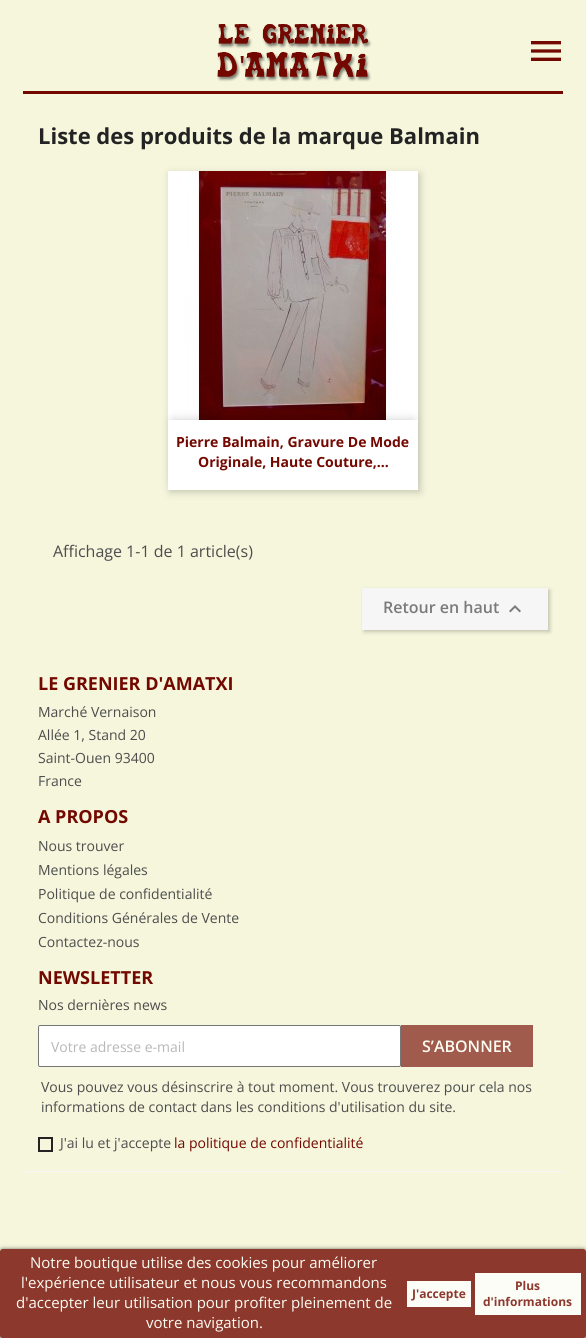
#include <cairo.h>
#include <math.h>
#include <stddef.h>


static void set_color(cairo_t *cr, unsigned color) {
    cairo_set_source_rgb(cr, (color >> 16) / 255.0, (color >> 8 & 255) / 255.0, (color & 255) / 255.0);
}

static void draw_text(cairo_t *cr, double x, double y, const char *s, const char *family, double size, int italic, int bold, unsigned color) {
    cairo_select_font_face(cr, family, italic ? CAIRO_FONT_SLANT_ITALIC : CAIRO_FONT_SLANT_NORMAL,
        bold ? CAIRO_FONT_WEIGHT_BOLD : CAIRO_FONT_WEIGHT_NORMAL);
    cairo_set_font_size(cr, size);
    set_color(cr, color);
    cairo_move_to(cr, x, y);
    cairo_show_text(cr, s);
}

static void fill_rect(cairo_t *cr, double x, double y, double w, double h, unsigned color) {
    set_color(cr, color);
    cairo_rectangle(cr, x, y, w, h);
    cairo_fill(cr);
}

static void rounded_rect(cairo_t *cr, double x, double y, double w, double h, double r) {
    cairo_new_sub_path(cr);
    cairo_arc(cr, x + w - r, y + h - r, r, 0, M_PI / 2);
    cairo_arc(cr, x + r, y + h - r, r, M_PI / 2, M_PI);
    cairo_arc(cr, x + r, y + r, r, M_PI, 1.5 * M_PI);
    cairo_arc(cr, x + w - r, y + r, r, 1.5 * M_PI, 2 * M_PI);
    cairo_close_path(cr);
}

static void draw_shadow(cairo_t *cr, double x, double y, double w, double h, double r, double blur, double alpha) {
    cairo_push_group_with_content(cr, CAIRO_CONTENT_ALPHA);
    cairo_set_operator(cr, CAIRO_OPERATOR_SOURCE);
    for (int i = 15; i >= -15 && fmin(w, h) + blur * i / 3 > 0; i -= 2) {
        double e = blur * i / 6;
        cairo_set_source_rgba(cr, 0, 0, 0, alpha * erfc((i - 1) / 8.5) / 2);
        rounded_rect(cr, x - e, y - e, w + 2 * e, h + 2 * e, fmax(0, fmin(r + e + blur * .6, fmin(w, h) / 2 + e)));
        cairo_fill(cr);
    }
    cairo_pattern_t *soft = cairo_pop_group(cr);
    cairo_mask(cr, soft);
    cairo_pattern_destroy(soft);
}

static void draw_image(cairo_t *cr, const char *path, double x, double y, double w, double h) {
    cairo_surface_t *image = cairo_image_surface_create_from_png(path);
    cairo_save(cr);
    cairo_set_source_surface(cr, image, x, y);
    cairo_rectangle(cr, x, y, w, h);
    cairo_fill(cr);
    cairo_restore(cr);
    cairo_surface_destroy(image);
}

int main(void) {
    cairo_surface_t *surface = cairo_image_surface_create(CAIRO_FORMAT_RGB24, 586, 1338);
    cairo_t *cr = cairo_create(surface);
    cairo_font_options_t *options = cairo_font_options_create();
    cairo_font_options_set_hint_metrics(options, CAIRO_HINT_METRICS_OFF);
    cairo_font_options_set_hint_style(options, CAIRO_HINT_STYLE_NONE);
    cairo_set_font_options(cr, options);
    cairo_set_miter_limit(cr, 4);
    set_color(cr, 0xF5F6DC);
    cairo_paint(cr);
    draw_text(cr, 38, 144, "Liste des produits de la marque Balmain", "Open Sans", 22, 0, 1, 0x232323);
    set_color(cr, 0x000000);
    draw_shadow(cr, 170, 174, 250, 318, 0, 4, 0.2);
    draw_image(cr, "assets/img1.png", 168, 171, 250, 249);
    draw_shadow(cr, 173, 420, 240, 60, 0, 5, 0.2);
    fill_rect(cr, 168, 420, 250, 70, 0xFFFFFF);
    draw_text(cr, 176, 447, "Pierre Balmain, Gravure De Mode", "Open Sans", 14, 0, 1, 0x730800);
    draw_text(cr, 198, 467, "Originale, Haute Couture,...", "Open Sans", 14, 0, 1, 0x730800);
    draw_text(cr, 53, 557, "Affichage 1-1 de 1 article(s)", "Open Sans", 16, 0, 0, 0x4D4D4D);
    set_color(cr, 0x000000);
    draw_shadow(cr, 364, 590, 186, 42, 0, 2, 0.2);
    fill_rect(cr, 362, 588, 186, 42, 0xF6F6F6);
    draw_text(cr, 383, 613, "Retour en haut", "Open Sans SemiBold", 16, 0, 0, 0x7A7A7A);
    draw_image(cr, "assets/img2.png", 509, 605, 12, 8);
    draw_text(cr, 38, 690, "LE GRENIER D'AMATXI", "Open Sans", 18, 0, 1, 0x730800);
    draw_text(cr, 38, 717, "Marché Vernaison", "Open Sans", 14, 0, 0, 0x4D4D4D);
    draw_text(cr, 38, 740, "Allée 1, Stand 20", "Open Sans", 14, 0, 0, 0x4D4D4D);
    draw_text(cr, 38, 763, "Saint-Ouen 93400", "Open Sans", 14, 0, 0, 0x4D4D4D);
    draw_text(cr, 38, 786, "France", "Open Sans", 14, 0, 0, 0x4D4D4D);
    draw_text(cr, 38, 823, "A PROPOS", "Open Sans", 18, 0, 1, 0x730800);
    draw_text(cr, 38, 851, "Nous trouver", "Open Sans", 14, 0, 0, 0x4D4D4D);
    draw_text(cr, 38, 875, "Mentions légales", "Open Sans", 14, 0, 0, 0x4D4D4D);
    draw_text(cr, 38, 899, "Politique de confidentialité", "Open Sans", 14, 0, 0, 0x4D4D4D);
    draw_text(cr, 38, 923, "Conditions Générales de Vente", "Open Sans", 14, 0, 0, 0x4D4D4D);
    draw_text(cr, 38, 947, "Contactez-nous", "Open Sans", 14, 0, 0, 0x4D4D4D);
    fill_rect(cr, 23, 1171, 540, 1, 0xF6F6F6);
    draw_text(cr, 38, 984, "NEWSLETTER", "Open Sans", 18, 0, 1, 0x730800);
    draw_text(cr, 38, 1010, "Nos dernières news", "Open Sans", 14, 0, 0, 0x4D4D4D);
    set_color(cr, 0xFFFFFF);
    rounded_rect(cr, 38.5, 1025.5, 362, 41, 1.5);
    cairo_fill_preserve(cr);
    set_color(cr, 0x767676);
    cairo_set_line_width(cr, 1);
    cairo_stroke(cr);
    draw_text(cr, 51, 1052, "Votre adresse e-mail", "Open Sans", 14, 0, 0, 0xB7B7B7);
    fill_rect(cr, 401, 1025, 132, 42, 0xA15B4D);
    draw_text(cr, 422, 1052, "S’ABONNER", "Open Sans SemiBold", 16, 0, 0, 0xFCFCF3);
    draw_text(cr, 41, 1092, "Vous pouvez vous désinscrire à tout moment. Vous trouverez pour cela nos", "Open Sans", 14, 0, 0, 0x4D4D4D);
    draw_text(cr, 41, 1112, "informations de contact dans les conditions d'utilisation du site.", "Open Sans", 14, 0, 0, 0x4D4D4D);
    cairo_rectangle(cr, 39, 1138, 13, 13);
    set_color(cr, 0x232323);
    cairo_set_line_width(cr, 2);
    cairo_stroke(cr);
    draw_text(cr, 60, 1148, "J'ai lu et j'accepte", "Open Sans", 14, 0, 0, 0x4D4D4D);
    draw_text(cr, 174, 1148, "la politique de confidentialité", "Open Sans", 14, 0, 0, 0x730800);
    fill_rect(cr, 23, 91, 540, 1, 0x730800);
    draw_image(cr, "assets/img3.png", 217, 24, 155, 58);
    draw_image(cr, "assets/img4.png", 531, 41, 30, 20);
    fill_rect(cr, 23, 92, 540, 2, 0x730800);
    set_color(cr, 0x31312C);
    draw_shadow(cr, 0, 1250, 586, 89, 3, 2.5, 1);
    set_color(cr, 0x8D382C);
    rounded_rect(cr, 0.5, 1249.5, 585, 88, 2.5);
    cairo_fill_preserve(cr);
    cairo_set_line_width(cr, 1);
    cairo_stroke(cr);
    draw_text(cr, 30, 1268, "Notre boutique utilise des cookies pour améliorer", "Open Sans", 15, 0, 0, 0xFCFCF3);
    draw_text(cr, 21, 1288, "l'expérience utilisateur et nous vous recommandons", "Open Sans", 15, 0, 0, 0xFCFCF3);
    draw_text(cr, 16, 1308, "d'accepter leur utilisation pour profiter pleinement de", "Open Sans", 15, 0, 0, 0xFCFCF3);
    draw_text(cr, 146, 1328, "votre navigation.", "Open Sans", 15, 0, 0, 0xFCFCF3);
    fill_rect(cr, 407, 1281, 64, 26, 0xFDFDF8);
    draw_text(cr, 412, 1298, "J'accepte", "Open Sans", 12, 0, 1, 0x8D382C);
    fill_rect(cr, 475, 1273, 106, 42, 0xFDFDF8);
    draw_text(cr, 515, 1290, "Plus", "Open Sans", 12, 0, 1, 0x8D382C);
    draw_text(cr, 483, 1306, "d'informations", "Open Sans", 12, 0, 1, 0x8D382C);
    cairo_surface_write_to_png(surface, "output.png");
    cairo_font_options_destroy(options);
    cairo_destroy(cr);
    cairo_surface_destroy(surface);
    return 0;
}
